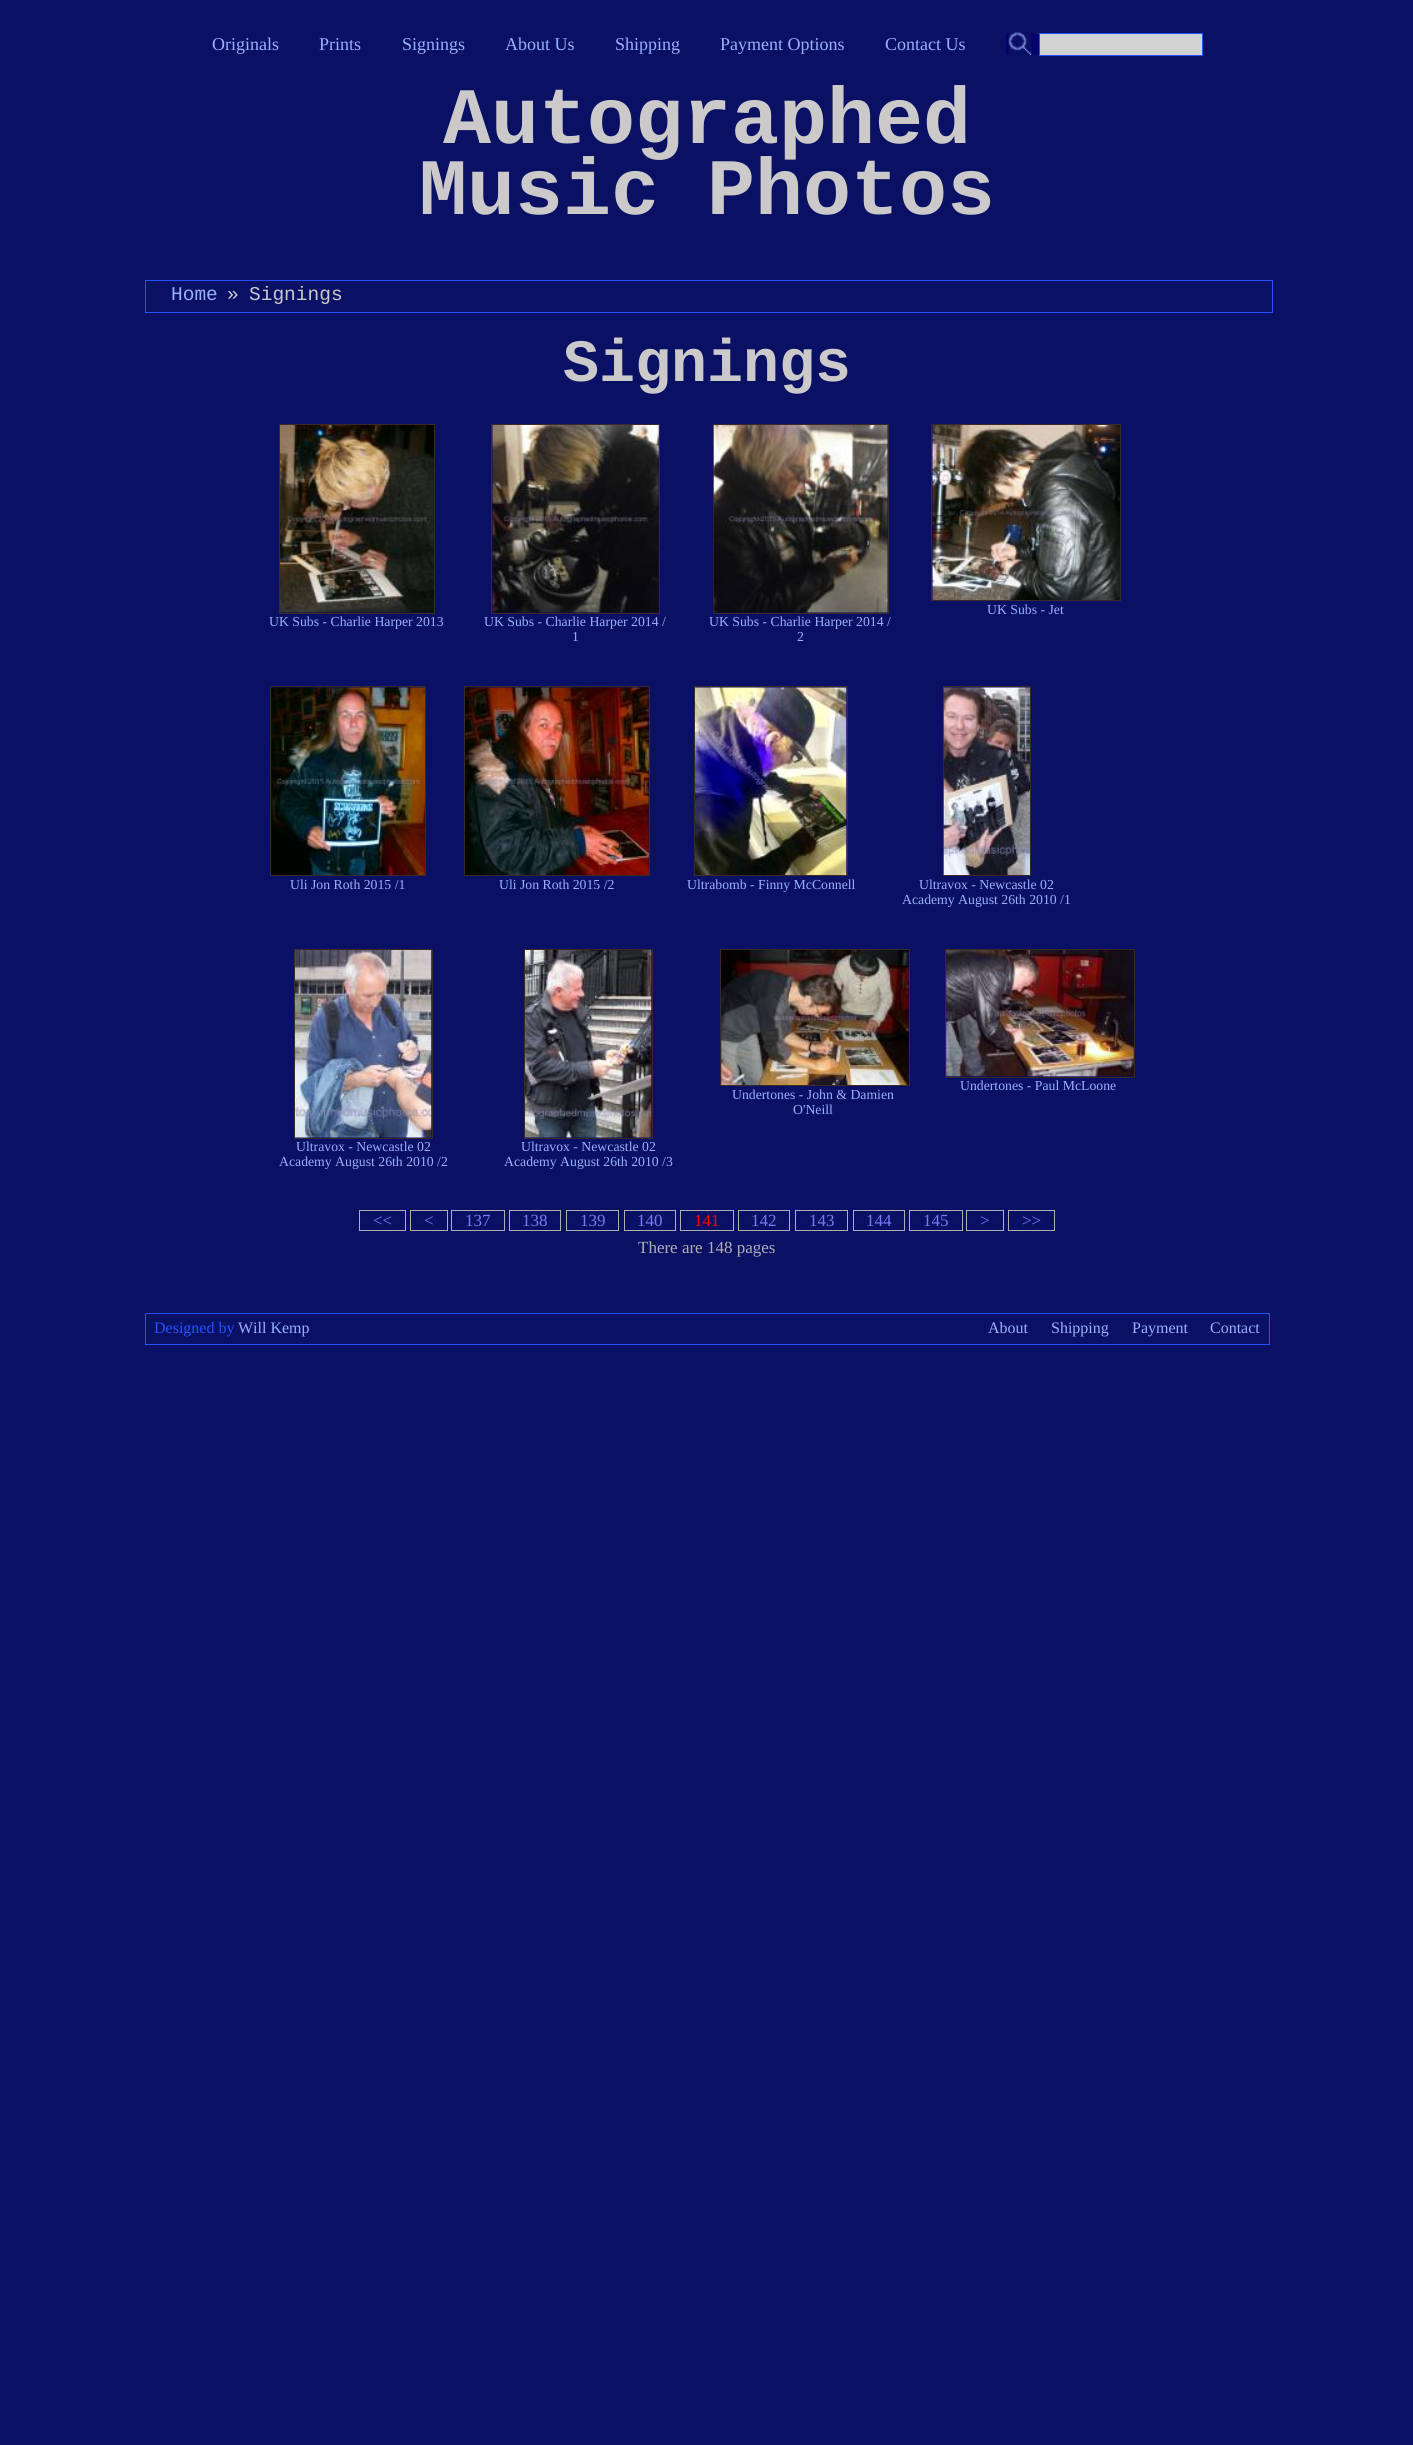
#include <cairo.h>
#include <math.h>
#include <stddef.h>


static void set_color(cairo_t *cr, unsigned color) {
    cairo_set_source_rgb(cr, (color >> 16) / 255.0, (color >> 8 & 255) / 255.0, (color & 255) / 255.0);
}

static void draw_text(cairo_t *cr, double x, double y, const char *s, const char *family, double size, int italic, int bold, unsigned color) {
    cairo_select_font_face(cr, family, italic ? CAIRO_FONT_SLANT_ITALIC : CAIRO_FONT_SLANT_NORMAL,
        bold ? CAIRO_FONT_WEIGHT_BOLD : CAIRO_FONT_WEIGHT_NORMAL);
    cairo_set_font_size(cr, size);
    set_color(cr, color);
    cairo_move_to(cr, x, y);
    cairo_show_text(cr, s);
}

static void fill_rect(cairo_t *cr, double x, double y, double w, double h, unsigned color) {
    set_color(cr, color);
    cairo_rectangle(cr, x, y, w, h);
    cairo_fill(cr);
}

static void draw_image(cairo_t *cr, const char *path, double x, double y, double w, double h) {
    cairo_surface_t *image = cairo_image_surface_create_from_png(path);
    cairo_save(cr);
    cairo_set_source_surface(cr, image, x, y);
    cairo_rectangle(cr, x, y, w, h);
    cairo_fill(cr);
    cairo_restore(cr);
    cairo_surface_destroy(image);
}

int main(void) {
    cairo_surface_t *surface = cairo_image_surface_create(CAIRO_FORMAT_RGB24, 1413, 2445);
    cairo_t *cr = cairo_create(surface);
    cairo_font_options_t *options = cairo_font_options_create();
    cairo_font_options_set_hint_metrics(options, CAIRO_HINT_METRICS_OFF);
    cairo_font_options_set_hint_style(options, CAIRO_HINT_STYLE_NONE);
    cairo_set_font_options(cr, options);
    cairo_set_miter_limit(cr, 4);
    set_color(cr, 0x0A1164);
    cairo_paint(cr);
    draw_text(cr, 212, 50, "Originals", "Liberation Serif", 18, 0, 0, 0x9AAFFE);
    draw_text(cr, 319, 50, "Prints", "Liberation Serif", 18, 0, 0, 0x9AAFFE);
    draw_text(cr, 402, 50, "Signings", "Liberation Serif", 18, 0, 0, 0x9AAFFE);
    draw_text(cr, 505, 50, "About Us", "Liberation Serif", 18, 0, 0, 0x9AAFFE);
    draw_text(cr, 615, 50, "Shipping", "Liberation Serif", 18, 0, 0, 0x9AAFFE);
    draw_text(cr, 720, 50, "Payment Options", "Liberation Serif", 18, 0, 0, 0x9AAFFE);
    draw_text(cr, 885, 50, "Contact Us", "Liberation Serif", 18, 0, 0, 0x9AAFFE);
    fill_rect(cr, 1006, 33, 28, 22, 0x06006E);
    fill_rect(cr, 1034, 34, 5, 20, 0x06006E);
    draw_image(cr, "assets/img1.png", 1008, 32, 24, 23);
    set_color(cr, 0xD3D3D3);
    cairo_rectangle(cr, 1039.5, 33.5, 163, 22);
    cairo_fill_preserve(cr);
    set_color(cr, 0x2351FF);
    cairo_set_line_width(cr, 1);
    cairo_stroke(cr);
    draw_text(cr, 443, 143, "Autographed", "Liberation Mono", 80, 0, 1, 0xCBC9C9);
    draw_text(cr, 419, 214, "Music Photos", "Liberation Mono", 80, 0, 1, 0xCBC9C9);
    cairo_rectangle(cr, 145.5, 280.5, 1127, 32);
    set_color(cr, 0x2351FF);
    cairo_stroke(cr);
    draw_text(cr, 171, 300, "Home", "Liberation Mono", 19.5, 0, 0, 0x9AAFFE);
    draw_text(cr, 227, 300, "»", "Liberation Mono", 19.5, 0, 0, 0xCBC9C9);
    draw_text(cr, 249, 300, "Signings", "Liberation Mono", 19.5, 0, 0, 0xCBC9C9);
    draw_text(cr, 563, 381, "Signings", "Liberation Mono", 60, 0, 1, 0xCBC9C9);
    cairo_rectangle(cr, 931.5, 424.5, 189, 176);
    set_color(cr, 0x3B2828);
    cairo_stroke(cr);
    draw_image(cr, "assets/img2.png", 932, 425, 188, 175);
    draw_text(cr, 987, 614, "UK Subs - Jet", "Liberation Serif", 13.75, 0, 0, 0x9AAFFE);
    cairo_rectangle(cr, 279.5, 424.5, 155, 189);
    set_color(cr, 0x3B2828);
    cairo_stroke(cr);
    draw_image(cr, "assets/img3.png", 280, 425, 154, 188);
    draw_text(cr, 269, 626, "UK Subs - Charlie Harper 2013", "Liberation Serif", 13.75, 0, 0, 0x9AAFFE);
    cairo_rectangle(cr, 491.5, 424.5, 168, 189);
    set_color(cr, 0x3B2828);
    cairo_stroke(cr);
    draw_image(cr, "assets/img4.png", 492, 425, 167, 188);
    draw_text(cr, 484, 626, "UK Subs - Charlie Harper 2014 /", "Liberation Serif", 13.75, 0, 0, 0x9AAFFE);
    draw_text(cr, 572, 641, "1", "Liberation Serif", 13.75, 0, 0, 0x9AAFFE);
    cairo_rectangle(cr, 713.5, 424.5, 175, 189);
    set_color(cr, 0x3B2828);
    cairo_stroke(cr);
    draw_image(cr, "assets/img5.png", 713, 425, 175, 188);
    draw_text(cr, 709, 626, "UK Subs - Charlie Harper 2014 /", "Liberation Serif", 13.75, 0, 0, 0x9AAFFE);
    draw_text(cr, 797, 641, "2", "Liberation Serif", 13.75, 0, 0, 0x9AAFFE);
    cairo_rectangle(cr, 270.5, 686.5, 155, 189);
    set_color(cr, 0x3B2828);
    cairo_stroke(cr);
    draw_image(cr, "assets/img6.png", 271, 687, 154, 188);
    draw_text(cr, 290, 889, "Uli Jon Roth 2015 /1", "Liberation Serif", 13.75, 0, 0, 0x9AAFFE);
    cairo_rectangle(cr, 464.5, 686.5, 185, 189);
    set_color(cr, 0x3B2828);
    cairo_stroke(cr);
    draw_image(cr, "assets/img7.png", 465, 687, 184, 188);
    draw_text(cr, 499, 889, "Uli Jon Roth 2015 /2", "Liberation Serif", 13.75, 0, 0, 0x9AAFFE);
    cairo_rectangle(cr, 694.5, 686.5, 153, 189);
    set_color(cr, 0x3B2828);
    cairo_stroke(cr);
    draw_image(cr, "assets/img8.png", 695, 687, 152, 188);
    draw_text(cr, 687, 889, "Ultrabomb - Finny McConnell", "Liberation Serif", 13.75, 0, 0, 0x9AAFFE);
    cairo_rectangle(cr, 943.5, 686.5, 87, 189);
    set_color(cr, 0x3B2828);
    cairo_stroke(cr);
    draw_image(cr, "assets/img9.png", 943, 687, 87, 188);
    draw_text(cr, 919, 889, "Ultravox - Newcastle 02", "Liberation Serif", 13.75, 0, 0, 0x9AAFFE);
    draw_text(cr, 902, 904, "Academy August 26th 2010 /1", "Liberation Serif", 13.75, 0, 0, 0x9AAFFE);
    cairo_rectangle(cr, 945.5, 949.5, 189, 128);
    set_color(cr, 0x3B2828);
    cairo_stroke(cr);
    draw_image(cr, "assets/img10.png", 946, 950, 188, 127);
    draw_text(cr, 960, 1090, "Undertones - Paul McLoone", "Liberation Serif", 13.75, 0, 0, 0x9AAFFE);
    cairo_rectangle(cr, 720.5, 949.5, 189, 136);
    set_color(cr, 0x3B2828);
    cairo_stroke(cr);
    draw_image(cr, "assets/img11.png", 721, 950, 188, 135);
    draw_text(cr, 732, 1099, "Undertones - John & Damien", "Liberation Serif", 13.75, 0, 0, 0x9AAFFE);
    draw_text(cr, 793, 1114, "O'Neill", "Liberation Serif", 13.75, 0, 0, 0x9AAFFE);
    cairo_rectangle(cr, 294.5, 949.5, 138, 189);
    set_color(cr, 0x3B2828);
    cairo_stroke(cr);
    draw_image(cr, "assets/img12.png", 295, 950, 137, 188);
    draw_text(cr, 296, 1151, "Ultravox - Newcastle 02", "Liberation Serif", 13.75, 0, 0, 0x9AAFFE);
    draw_text(cr, 279, 1166, "Academy August 26th 2010 /2", "Liberation Serif", 13.75, 0, 0, 0x9AAFFE);
    cairo_rectangle(cr, 524.5, 949.5, 128, 189);
    set_color(cr, 0x3B2828);
    cairo_stroke(cr);
    draw_image(cr, "assets/img13.png", 525, 950, 127, 188);
    draw_text(cr, 521, 1151, "Ultravox - Newcastle 02", "Liberation Serif", 13.75, 0, 0, 0x9AAFFE);
    draw_text(cr, 504, 1166, "Academy August 26th 2010 /3", "Liberation Serif", 13.75, 0, 0, 0x9AAFFE);
    cairo_rectangle(cr, 359.5, 1210.5, 46, 20);
    set_color(cr, 0xB0AEAE);
    cairo_stroke(cr);
    draw_text(cr, 373, 1226, "<<", "Liberation Serif", 17, 0, 0, 0x7A79F1);
    cairo_rectangle(cr, 410.5, 1210.5, 37, 20);
    set_color(cr, 0xB0AEAE);
    cairo_stroke(cr);
    draw_text(cr, 424, 1226, "<", "Liberation Serif", 17, 0, 0, 0x7A79F1);
    cairo_rectangle(cr, 451.5, 1210.5, 53, 20);
    set_color(cr, 0xB0AEAE);
    cairo_stroke(cr);
    draw_text(cr, 465, 1226, "137", "Liberation Serif", 17, 0, 0, 0x7A79F1);
    cairo_rectangle(cr, 509.5, 1210.5, 51, 20);
    set_color(cr, 0xB0AEAE);
    cairo_stroke(cr);
    draw_text(cr, 522, 1226, "138", "Liberation Serif", 17, 0, 0, 0x7A79F1);
    cairo_rectangle(cr, 566.5, 1210.5, 52, 20);
    set_color(cr, 0xB0AEAE);
    cairo_stroke(cr);
    draw_text(cr, 580, 1226, "139", "Liberation Serif", 17, 0, 0, 0x7A79F1);
    cairo_rectangle(cr, 624.5, 1210.5, 51, 20);
    set_color(cr, 0xB0AEAE);
    cairo_stroke(cr);
    draw_text(cr, 637, 1226, "140", "Liberation Serif", 17, 0, 0, 0x7A79F1);
    cairo_rectangle(cr, 680.5, 1210.5, 53, 20);
    set_color(cr, 0xB0AEAE);
    cairo_stroke(cr);
    draw_text(cr, 694, 1226, "141", "Liberation Serif", 17, 0, 0, 0xFF0000);
    cairo_rectangle(cr, 738.5, 1210.5, 51, 20);
    set_color(cr, 0xB0AEAE);
    cairo_stroke(cr);
    draw_text(cr, 751, 1226, "142", "Liberation Serif", 17, 0, 0, 0x7A79F1);
    cairo_rectangle(cr, 795.5, 1210.5, 52, 20);
    set_color(cr, 0xB0AEAE);
    cairo_stroke(cr);
    draw_text(cr, 809, 1226, "143", "Liberation Serif", 17, 0, 0, 0x7A79F1);
    cairo_rectangle(cr, 853.5, 1210.5, 51, 20);
    set_color(cr, 0xB0AEAE);
    cairo_stroke(cr);
    draw_text(cr, 866, 1226, "144", "Liberation Serif", 17, 0, 0, 0x7A79F1);
    cairo_rectangle(cr, 909.5, 1210.5, 53, 20);
    set_color(cr, 0xB0AEAE);
    cairo_stroke(cr);
    draw_text(cr, 923, 1226, "145", "Liberation Serif", 17, 0, 0, 0x7A79F1);
    cairo_rectangle(cr, 966.5, 1210.5, 37, 20);
    set_color(cr, 0xB0AEAE);
    cairo_stroke(cr);
    draw_text(cr, 980, 1226, ">", "Liberation Serif", 17, 0, 0, 0x7A79F1);
    cairo_rectangle(cr, 1008.5, 1210.5, 46, 20);
    set_color(cr, 0xB0AEAE);
    cairo_stroke(cr);
    draw_text(cr, 1022, 1226, ">>", "Liberation Serif", 17, 0, 0, 0x7A79F1);
    draw_text(cr, 638, 1253, "There are 148 pages", "Liberation Serif", 17, 0, 0, 0xB0AEAE);
    cairo_rectangle(cr, 145.5, 1313.5, 1124, 31);
    set_color(cr, 0x2351FF);
    cairo_stroke(cr);
    draw_text(cr, 154, 1333, "Designed by", "Liberation Serif", 16, 0, 0, 0x2351FF);
    draw_text(cr, 238, 1333, "Will Kemp", "Liberation Serif", 16, 0, 0, 0x9AAFFE);
    draw_text(cr, 988, 1333, "About", "Liberation Serif", 16, 0, 0, 0x9AAFFE);
    draw_text(cr, 1051, 1333, "Shipping", "Liberation Serif", 16, 0, 0, 0x9AAFFE);
    draw_text(cr, 1132, 1333, "Payment", "Liberation Serif", 16, 0, 0, 0x9AAFFE);
    draw_text(cr, 1210, 1333, "Contact", "Liberation Serif", 16, 0, 0, 0x9AAFFE);
    cairo_surface_write_to_png(surface, "output.png");
    cairo_font_options_destroy(options);
    cairo_destroy(cr);
    cairo_surface_destroy(surface);
    return 0;
}
